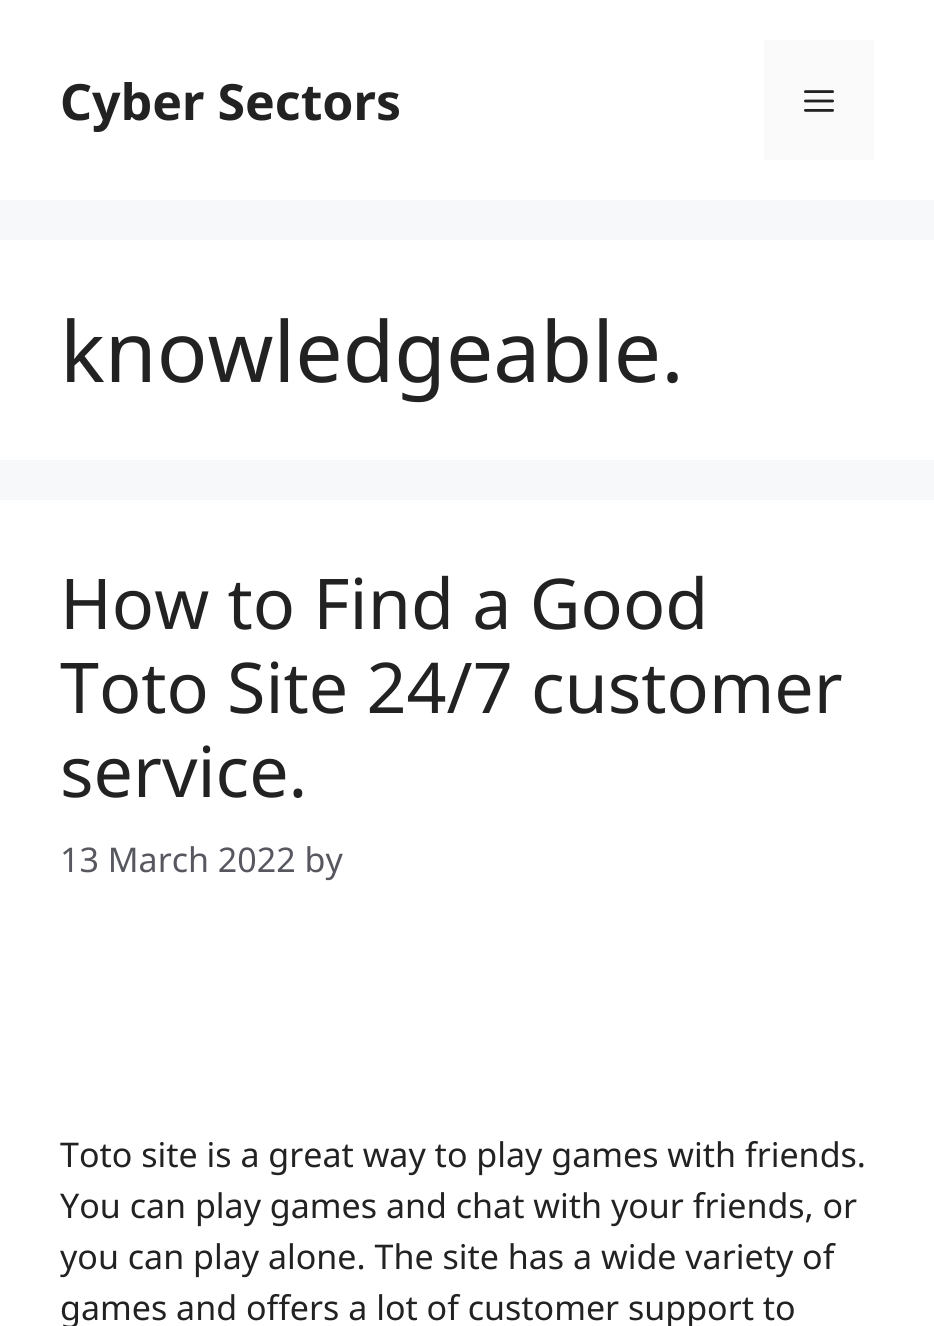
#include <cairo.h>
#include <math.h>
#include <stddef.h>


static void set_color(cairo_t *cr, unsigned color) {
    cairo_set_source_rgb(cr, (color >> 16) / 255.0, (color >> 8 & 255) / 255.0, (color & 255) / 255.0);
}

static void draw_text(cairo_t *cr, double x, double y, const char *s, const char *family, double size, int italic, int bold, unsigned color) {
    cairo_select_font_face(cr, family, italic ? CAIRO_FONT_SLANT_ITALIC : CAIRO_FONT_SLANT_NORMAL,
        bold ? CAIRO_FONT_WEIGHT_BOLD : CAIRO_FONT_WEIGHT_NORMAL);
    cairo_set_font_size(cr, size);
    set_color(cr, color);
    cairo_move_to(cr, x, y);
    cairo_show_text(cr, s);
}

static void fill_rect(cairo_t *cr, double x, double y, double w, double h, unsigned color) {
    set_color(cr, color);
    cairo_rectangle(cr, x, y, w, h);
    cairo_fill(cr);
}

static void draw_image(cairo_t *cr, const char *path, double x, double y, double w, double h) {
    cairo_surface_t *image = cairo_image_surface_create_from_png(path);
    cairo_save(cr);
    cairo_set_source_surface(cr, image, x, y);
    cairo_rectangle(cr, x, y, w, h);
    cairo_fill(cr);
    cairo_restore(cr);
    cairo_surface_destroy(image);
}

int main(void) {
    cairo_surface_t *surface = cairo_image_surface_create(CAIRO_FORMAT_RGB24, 934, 1326);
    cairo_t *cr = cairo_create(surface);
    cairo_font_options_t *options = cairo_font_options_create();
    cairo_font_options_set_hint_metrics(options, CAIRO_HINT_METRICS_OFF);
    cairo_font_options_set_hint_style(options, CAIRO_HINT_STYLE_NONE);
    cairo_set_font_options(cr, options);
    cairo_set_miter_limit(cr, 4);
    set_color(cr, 0xF7F8F9);
    cairo_paint(cr);
    fill_rect(cr, 0, 0, 934, 200, 0xFFFFFF);
    draw_text(cr, 60, 120, "Cyber Sectors", "Noto Sans", 50, 0, 1, 0x222222);
    fill_rect(cr, 764, 40, 110, 120, 0xFAFAFA);
    draw_image(cr, "assets/img1.png", 804, 90, 30, 22);
    fill_rect(cr, 0, 240, 934, 220, 0xFFFFFF);
    draw_text(cr, 60, 382, "knowledgeable.", "Noto Sans", 84, 0, 0, 0x222222);
    fill_rect(cr, 0, 500, 934, 826, 0xFFFFFF);
    draw_text(cr, 60, 629, "How to Find a Good", "Noto Sans", 70, 0, 0, 0x222222);
    draw_text(cr, 60, 713, "Toto Site 24/7 customer", "Noto Sans", 70, 0, 0, 0x222222);
    draw_text(cr, 60, 797, "service.", "Noto Sans", 70, 0, 0, 0x222222);
    draw_text(cr, 60, 872, "13 March 2022 by", "Noto Sans", 34, 0, 0, 0x575760);
    draw_text(cr, 60, 1167, "Toto site is a great way to play games with friends.", "Noto Sans", 34, 0, 0, 0x222222);
    draw_text(cr, 60, 1218, "You can play games and chat with your friends, or", "Noto Sans", 34, 0, 0, 0x222222);
    draw_text(cr, 60, 1269, "you can play alone. The site has a wide variety of", "Noto Sans", 34, 0, 0, 0x222222);
    draw_text(cr, 60, 1320, "games and offers a lot of customer support to", "Noto Sans", 34, 0, 0, 0x222222);
    cairo_surface_write_to_png(surface, "output.png");
    cairo_font_options_destroy(options);
    cairo_destroy(cr);
    cairo_surface_destroy(surface);
    return 0;
}
